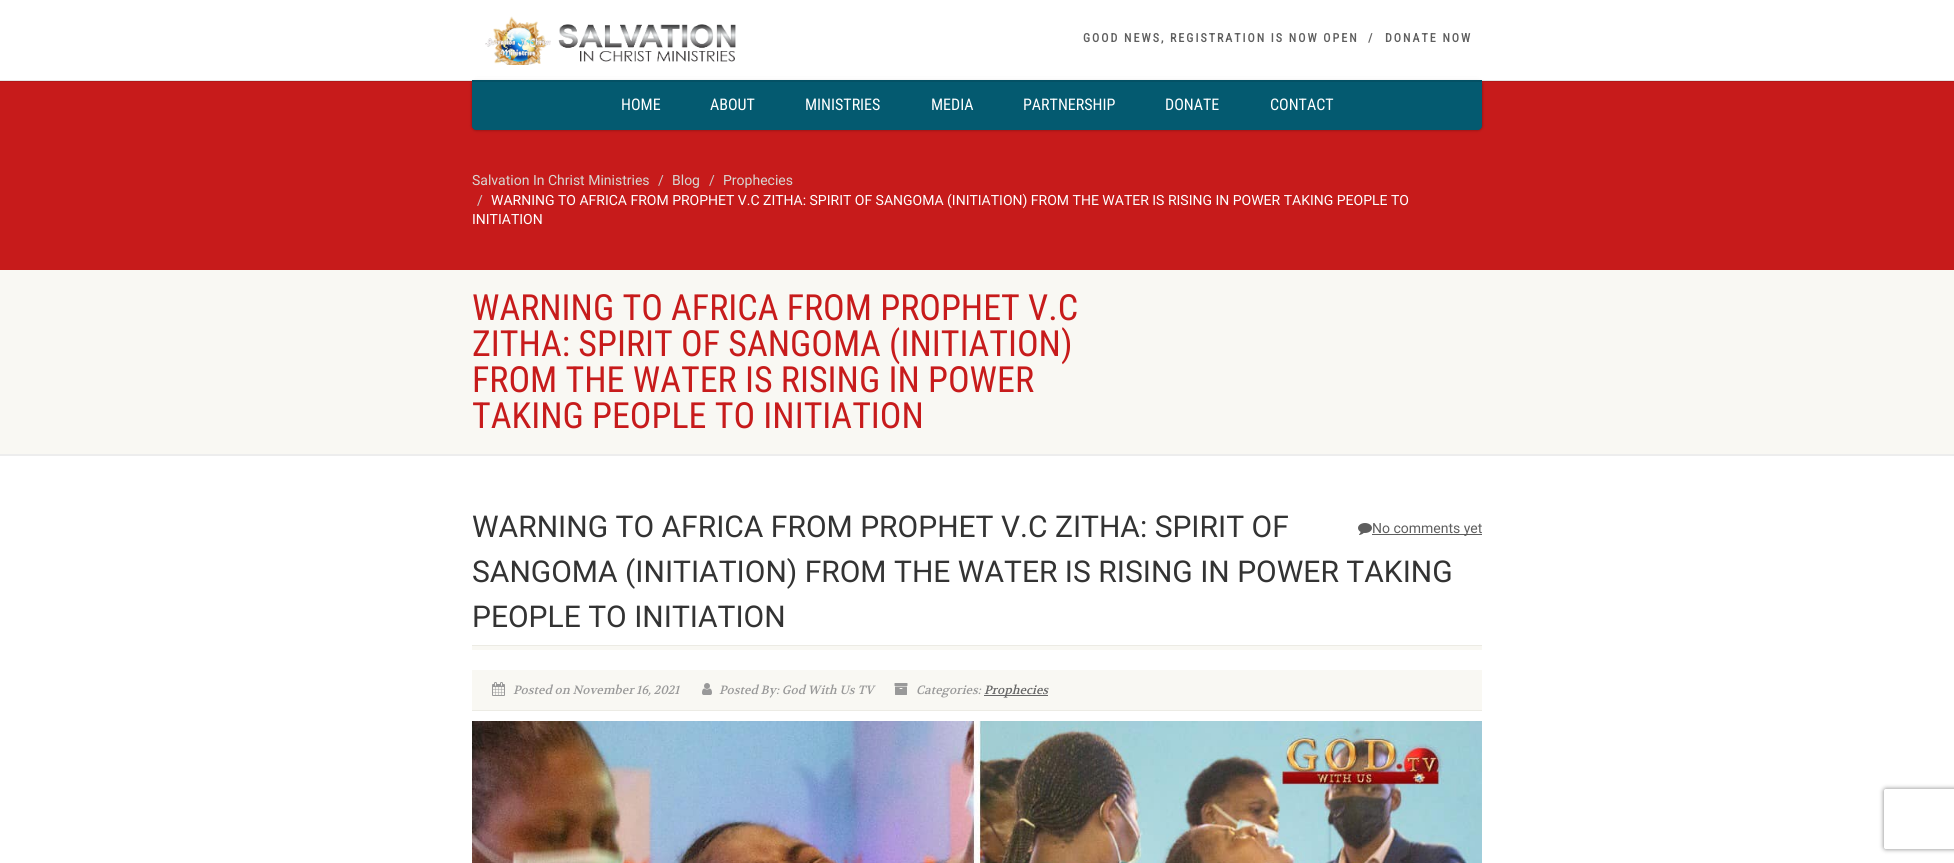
import math
import cairo

surface = cairo.ImageSurface(cairo.FORMAT_RGB24, 1954, 863)
ctx = cairo.Context(surface)
options = cairo.FontOptions()
options.set_hint_metrics(cairo.HINT_METRICS_OFF)
options.set_hint_style(cairo.HINT_STYLE_NONE)
ctx.set_font_options(options)
ctx.set_miter_limit(4)


def spaced_text(x, y, s, letter, word):
    ctx.move_to(x, y)
    for ch in s:
        ctx.show_text(ch)
        ctx.rel_move_to(letter + word * (ch == ' '), 0)


def round_rect(x, y, w, h, r):
    ctx.new_sub_path()
    for i, (u, v) in enumerate([(x + w - r, y + h - r), (x + r, y + h - r), (x + r, y + r), (x + w - r, y + r)]):
        ctx.arc(u, v, r, i * math.pi / 2, (i + 1) * math.pi / 2)
    ctx.close_path()


def shadow(x, y, w, h, r, blur, alpha):
    ctx.push_group_with_content(cairo.CONTENT_ALPHA)
    ctx.set_operator(cairo.OPERATOR_SOURCE)
    for i in range(15, -16, -2):
        e = blur * i / 6
        if min(w, h) + 2 * e > 0:
            ctx.set_source_rgba(0, 0, 0, alpha * math.erfc((i - 1) / 8.5) / 2)
            round_rect(x - e, y - e, w + 2 * e, h + 2 * e, max(0, min(r + e + blur * .6, min(w, h) / 2 + e)))
            ctx.fill()
    ctx.mask(ctx.pop_group())


def picture(path, x, y, w, h):
    ctx.save()
    ctx.set_source_surface(cairo.ImageSurface.create_from_png(path), x, y)
    ctx.rectangle(x, y, w, h)
    ctx.fill()
    ctx.restore()


ctx.set_source_rgb(1, 1, 1)
ctx.paint()
ctx.set_source_rgb(0.78, 0.106, 0.106)
ctx.rectangle(0, 81, 1954, 189)
ctx.fill()
ctx.set_source_rgb(0, 0, 0)
shadow(472, 80, 1010, 50, 4, 1.5, 0.4)
ctx.set_source_rgb(0.016, 0.353, 0.439)
ctx.new_path()
ctx.move_to(472, 80)
ctx.line_to(1482, 80)
ctx.line_to(1482, 126)
ctx.curve_to(1482, 128, 1480, 130, 1478, 130)
ctx.line_to(476, 130)
ctx.curve_to(474, 130, 472, 128, 472, 126)
ctx.close_path()
ctx.fill()
ctx.set_source_rgba(0, 0, 0, 0.1)
ctx.rectangle(0, 80, 1954, 2)
ctx.fill()
ctx.set_source_rgba(1, 1, 1, 0.8)
ctx.rectangle(471, 77, 1012, 3)
ctx.fill()
picture("img1.png", 485, 16, 251, 49)
ctx.select_font_face("Roboto Condensed", cairo.FONT_SLANT_NORMAL, cairo.FONT_WEIGHT_BOLD)
ctx.set_font_size(12)
ctx.set_source_rgb(0.369, 0.369, 0.369)
spaced_text(1083, 42, "GOOD NEWS, REGISTRATION IS NOW OPEN", 2, 0)
ctx.set_source_rgb(0.4, 0.4, 0.4)
spaced_text(1368, 42, "/", 2, 0)
ctx.set_source_rgb(0.369, 0.369, 0.369)
spaced_text(1385, 42, "DONATE NOW", 2, 0)
ctx.select_font_face("Roboto Condensed")
ctx.set_font_size(16)
ctx.set_source_rgb(1, 1, 1)
ctx.move_to(621, 110)
ctx.show_text("HOME")
ctx.move_to(710, 110)
ctx.show_text("ABOUT")
ctx.move_to(805, 110)
ctx.show_text("MINISTRIES")
ctx.move_to(931, 110)
ctx.show_text("MEDIA")
ctx.move_to(1023, 110)
ctx.show_text("PARTNERSHIP")
ctx.move_to(1165, 110)
ctx.show_text("DONATE")
ctx.move_to(1270, 110)
ctx.show_text("CONTACT")
ctx.select_font_face("Roboto")
ctx.set_font_size(14)
ctx.set_source_rgb(0.847, 0.839, 0.82)
ctx.move_to(472, 185)
ctx.show_text("Salvation In Christ Ministries")
ctx.set_source_rgb(0.8, 0.8, 0.8)
ctx.move_to(658, 185)
ctx.show_text("/")
ctx.set_source_rgb(0.847, 0.839, 0.82)
ctx.move_to(672, 185)
ctx.show_text("Blog")
ctx.set_source_rgb(0.8, 0.8, 0.8)
ctx.move_to(709, 185)
ctx.show_text("/")
ctx.set_source_rgb(0.847, 0.839, 0.82)
ctx.move_to(723, 185)
ctx.show_text("Prophecies")
ctx.set_source_rgb(0.8, 0.8, 0.8)
ctx.move_to(477, 205)
ctx.show_text("/")
ctx.set_source_rgb(1, 1, 1)
ctx.move_to(491, 205)
ctx.show_text("WARNING TO AFRICA FROM PROPHET V.C ZITHA: SPIRIT OF SANGOMA (INITIATION) FROM THE WATER IS RISING IN POWER TAKING PEOPLE TO")
ctx.move_to(472, 224)
ctx.show_text("INITIATION")
ctx.set_source_rgb(0.929, 0.929, 0.929)
ctx.rectangle(0, 454, 1954, 2)
ctx.fill()
ctx.set_source_rgb(0.973, 0.969, 0.953)
ctx.rectangle(0, 270, 1954, 184)
ctx.fill()
ctx.select_font_face("Roboto Condensed")
ctx.set_font_size(36)
ctx.set_source_rgb(0.78, 0.106, 0.106)
ctx.move_to(472, 320)
ctx.show_text("WARNING TO AFRICA FROM PROPHET V.C")
ctx.move_to(472, 356)
ctx.show_text("ZITHA: SPIRIT OF SANGOMA (INITIATION)")
ctx.move_to(472, 392)
ctx.show_text("FROM THE WATER IS RISING IN POWER")
ctx.move_to(472, 428)
ctx.show_text("TAKING PEOPLE TO INITIATION")
ctx.set_source_rgb(0.925, 0.918, 0.894)
ctx.rectangle(472, 645, 1010, 1)
ctx.fill()
ctx.select_font_face("Roboto")
ctx.set_font_size(30)
ctx.set_source_rgb(0.2, 0.2, 0.2)
ctx.move_to(472, 537)
ctx.show_text("WARNING TO AFRICA FROM PROPHET V.C ZITHA: SPIRIT OF")
ctx.move_to(472, 582)
ctx.show_text("SANGOMA (INITIATION) FROM THE WATER IS RISING IN POWER TAKING")
ctx.move_to(472, 627)
ctx.show_text("PEOPLE TO INITIATION")
picture("img2.png", 1358, 523, 14, 12)
ctx.set_source_rgb(0.369, 0.369, 0.369)
ctx.rectangle(1372, 534, 110, 1)
ctx.fill()
ctx.set_font_size(14)
ctx.move_to(1372, 533)
ctx.show_text("No comments yet")
ctx.set_source_rgb(0.973, 0.969, 0.953)
ctx.rectangle(472, 646, 1010, 4)
ctx.fill()
ctx.rectangle(472, 670, 1010, 40)
ctx.fill()
ctx.set_source_rgb(0.925, 0.918, 0.894)
ctx.rectangle(472, 710, 1010, 1)
ctx.fill()
picture("img3.png", 492, 682, 13, 14)
ctx.select_font_face("Volkhov", cairo.FONT_SLANT_ITALIC)
ctx.set_font_size(12)
ctx.set_source_rgb(0.6, 0.6, 0.6)
ctx.move_to(513, 694)
ctx.show_text("Posted on November 16, 2021")
picture("img4.png", 702, 683, 10, 12)
ctx.move_to(719, 694)
ctx.show_text("Posted By: God With Us TV")
picture("img5.png", 894, 683, 14, 12)
ctx.move_to(916, 694)
ctx.show_text("Categories:")
ctx.set_source_rgb(0.4, 0.4, 0.4)
ctx.rectangle(984, 695, 64, 1)
ctx.fill()
ctx.move_to(984, 694)
ctx.show_text("Prophecies")
picture("img6.png", 472, 721, 1010, 142)
ctx.save()
ctx.set_fill_rule(cairo.FILL_RULE_EVEN_ODD)
ctx.new_path()
ctx.move_to(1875, 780)
ctx.line_to(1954, 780)
ctx.line_to(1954, 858)
ctx.line_to(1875, 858)
ctx.close_path()
ctx.move_to(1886, 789)
ctx.line_to(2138, 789)
ctx.curve_to(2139, 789, 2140, 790, 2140, 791)
ctx.line_to(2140, 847)
ctx.curve_to(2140, 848, 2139, 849, 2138, 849)
ctx.line_to(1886, 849)
ctx.curve_to(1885, 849, 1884, 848, 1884, 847)
ctx.line_to(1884, 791)
ctx.curve_to(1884, 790, 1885, 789, 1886, 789)
ctx.close_path()
ctx.clip()
ctx.set_source_rgb(0.502, 0.502, 0.502)
shadow(1884, 789, 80, 60, 2, 2.5, 1)
ctx.restore()
surface.write_to_png("page.png")
